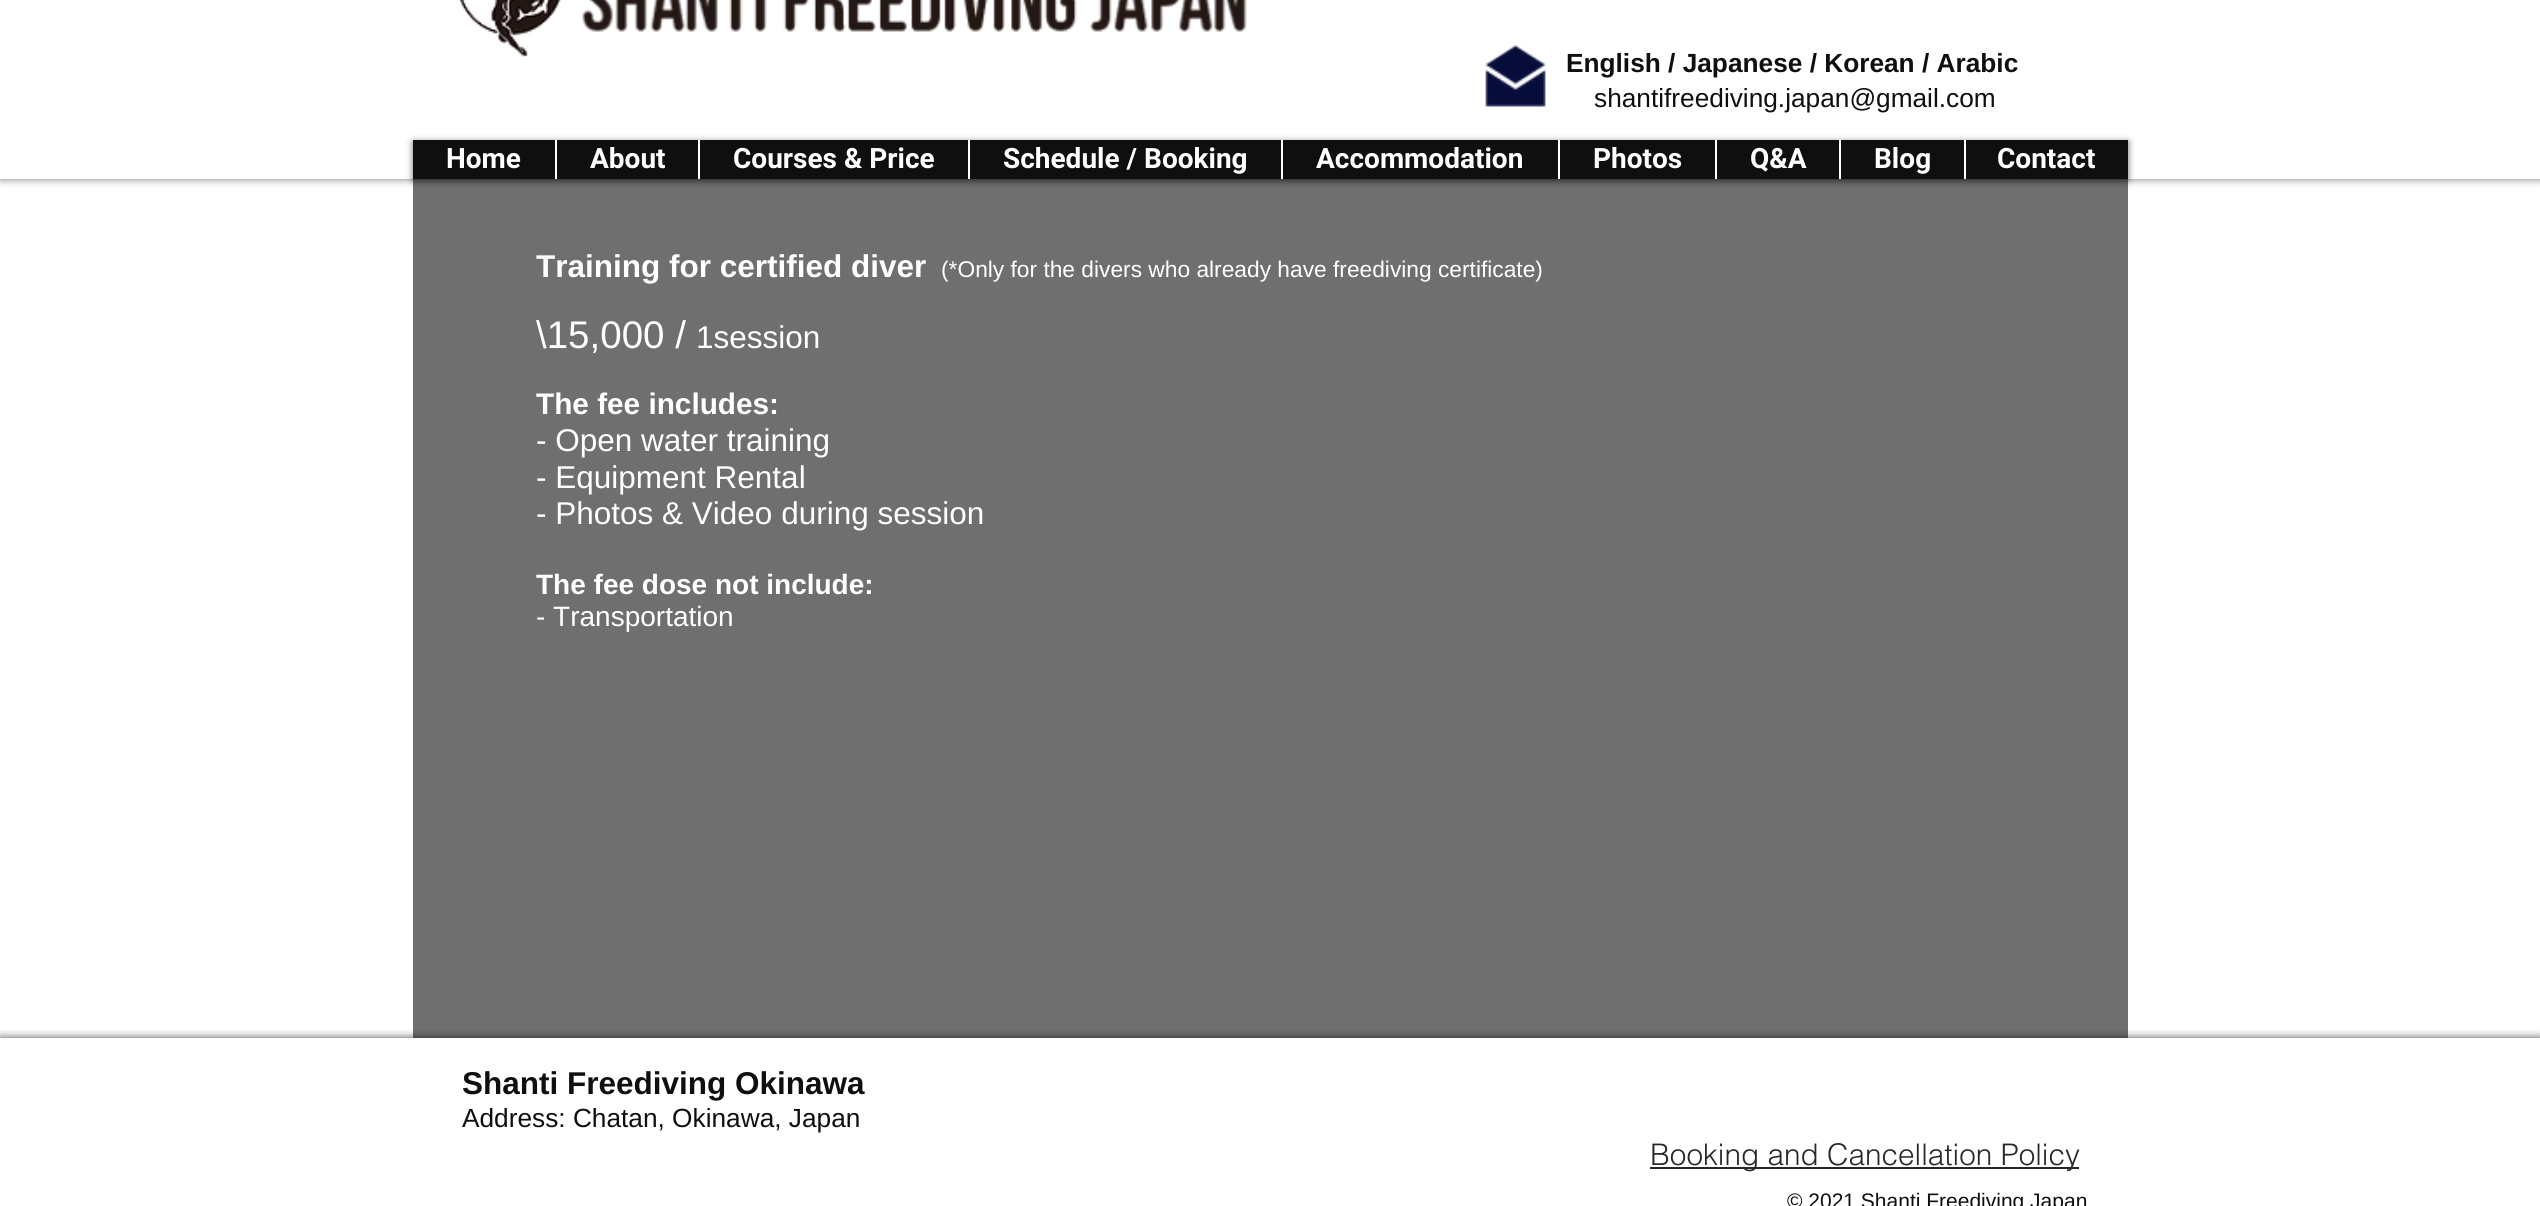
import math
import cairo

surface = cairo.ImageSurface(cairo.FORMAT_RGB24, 2540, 1206)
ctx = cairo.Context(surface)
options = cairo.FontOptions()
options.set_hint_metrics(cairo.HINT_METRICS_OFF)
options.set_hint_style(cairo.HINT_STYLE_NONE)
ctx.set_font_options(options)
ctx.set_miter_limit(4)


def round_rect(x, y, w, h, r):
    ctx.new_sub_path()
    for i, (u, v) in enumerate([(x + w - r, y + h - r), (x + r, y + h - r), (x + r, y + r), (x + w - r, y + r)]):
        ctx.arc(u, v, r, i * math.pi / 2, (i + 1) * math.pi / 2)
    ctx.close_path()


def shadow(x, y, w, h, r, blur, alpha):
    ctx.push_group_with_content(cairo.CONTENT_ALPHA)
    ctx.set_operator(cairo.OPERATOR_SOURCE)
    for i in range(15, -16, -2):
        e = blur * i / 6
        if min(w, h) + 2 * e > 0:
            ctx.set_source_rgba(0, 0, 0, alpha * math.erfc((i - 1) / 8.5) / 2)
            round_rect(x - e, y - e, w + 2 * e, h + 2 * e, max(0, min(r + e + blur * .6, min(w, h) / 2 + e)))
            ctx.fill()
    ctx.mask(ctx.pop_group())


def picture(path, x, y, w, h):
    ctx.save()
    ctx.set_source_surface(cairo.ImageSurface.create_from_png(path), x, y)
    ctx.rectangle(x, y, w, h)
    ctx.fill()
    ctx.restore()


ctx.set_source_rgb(1, 1, 1)
ctx.paint()
ctx.set_source_rgb(0, 0, 0)
shadow(0, -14, 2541, 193, 0, 4.5, 0.5)
ctx.set_source_rgb(1, 1, 1)
ctx.rectangle(0, 0, 2540, 179)
ctx.fill()
picture("img1.png", 459, 0, 102, 57)
picture("img2.png", 582, 0, 665, 32)
picture("img3.png", 1485, 45, 61, 62)
ctx.select_font_face("Liberation Sans", cairo.FONT_SLANT_NORMAL, cairo.FONT_WEIGHT_BOLD)
ctx.set_font_size(26.25)
ctx.set_source_rgb(0.059, 0.059, 0.059)
ctx.move_to(1566, 72)
ctx.show_text("English / Japanese / Korean / Arabic")
ctx.select_font_face("Liberation Sans")
ctx.move_to(1594, 107)
ctx.show_text("shantifreediving.japan@gmail.com")
ctx.set_source_rgb(0, 0, 0)
shadow(413, 142, 1715, 38, 0, 3.5, 0.6)
ctx.set_source_rgb(0.059, 0.059, 0.059)
ctx.rectangle(413, 140, 1715, 39)
ctx.fill()
ctx.select_font_face("Roboto", cairo.FONT_SLANT_NORMAL, cairo.FONT_WEIGHT_BOLD)
ctx.set_font_size(28)
ctx.set_source_rgb(1, 1, 1)
ctx.move_to(446, 168)
ctx.show_text("Home")
ctx.rectangle(555, 140, 2, 39)
ctx.fill()
ctx.move_to(590, 168)
ctx.show_text("About")
ctx.rectangle(698, 140, 2, 39)
ctx.fill()
ctx.move_to(733, 168)
ctx.show_text("Courses & Price")
ctx.rectangle(968, 140, 2, 39)
ctx.fill()
ctx.move_to(1003, 168)
ctx.show_text("Schedule / Booking")
ctx.rectangle(1281, 140, 2, 39)
ctx.fill()
ctx.move_to(1316, 168)
ctx.show_text("Accommodation")
ctx.rectangle(1558, 140, 2, 39)
ctx.fill()
ctx.move_to(1593, 168)
ctx.show_text("Photos")
ctx.rectangle(1715, 140, 2, 39)
ctx.fill()
ctx.move_to(1750, 168)
ctx.show_text("Q&A")
ctx.rectangle(1839, 140, 2, 39)
ctx.fill()
ctx.move_to(1874, 168)
ctx.show_text("Blog")
ctx.rectangle(1964, 140, 2, 39)
ctx.fill()
ctx.move_to(1997, 168)
ctx.show_text("Contact")
ctx.set_source_rgba(0.059, 0.059, 0.059, 0.6)
ctx.rectangle(413, 179, 1715, 859)
ctx.fill()
ctx.select_font_face("Liberation Sans", cairo.FONT_SLANT_NORMAL, cairo.FONT_WEIGHT_BOLD)
ctx.set_font_size(31.5)
ctx.set_source_rgb(1, 1, 1)
ctx.move_to(536, 277)
ctx.show_text("Training for certified diver")
ctx.select_font_face("Liberation Sans")
ctx.set_font_size(22.75)
ctx.move_to(941, 277)
ctx.show_text("(*Only for the divers who already have freediving certificate)")
ctx.set_font_size(38.5)
ctx.move_to(536, 348)
ctx.show_text("\\15,000 /")
ctx.set_font_size(31.5)
ctx.move_to(696, 348)
ctx.show_text("1session")
ctx.select_font_face("Liberation Sans", cairo.FONT_SLANT_NORMAL, cairo.FONT_WEIGHT_BOLD)
ctx.set_font_size(29.75)
ctx.move_to(536, 414)
ctx.show_text("The fee includes:")
ctx.select_font_face("Liberation Sans")
ctx.set_font_size(31.5)
ctx.move_to(536, 451)
ctx.show_text("- Open water training")
ctx.move_to(536, 488)
ctx.show_text("- Equipment Rental")
ctx.move_to(536, 524)
ctx.show_text("- Photos & Video during session")
ctx.select_font_face("Liberation Sans", cairo.FONT_SLANT_NORMAL, cairo.FONT_WEIGHT_BOLD)
ctx.set_font_size(28)
ctx.move_to(536, 594)
ctx.show_text("The fee dose not include:")
ctx.select_font_face("Liberation Sans")
ctx.move_to(536, 626)
ctx.show_text("- Transportation")
ctx.save()
ctx.rectangle(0, 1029, 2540, 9)
ctx.clip()
ctx.set_source_rgb(0, 0, 0)
shadow(0, 1038, 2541, 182, 0, 4.5, 0.7)
ctx.restore()
ctx.select_font_face("Liberation Sans", cairo.FONT_SLANT_NORMAL, cairo.FONT_WEIGHT_BOLD)
ctx.set_font_size(31.5)
ctx.set_source_rgb(0.059, 0.059, 0.059)
ctx.move_to(462, 1094)
ctx.show_text("Shanti Freediving Okinawa")
ctx.select_font_face("Liberation Sans")
ctx.set_font_size(26.25)
ctx.move_to(462, 1127)
ctx.show_text("Address: Chatan, Okinawa, Japan")
ctx.set_source_rgb(0.157, 0.149, 0.149)
ctx.rectangle(1650, 1167, 429, 2)
ctx.fill()
ctx.select_font_face("helvetica Light")
ctx.set_font_size(29.75)
ctx.move_to(1650, 1165)
ctx.show_text("Booking and Cancellation Policy")
ctx.select_font_face("Liberation Sans")
ctx.set_font_size(21)
ctx.set_source_rgb(0.059, 0.059, 0.059)
ctx.move_to(1787, 1208)
ctx.show_text("© 2021 Shanti Freediving Japan")
surface.write_to_png("page.png")
